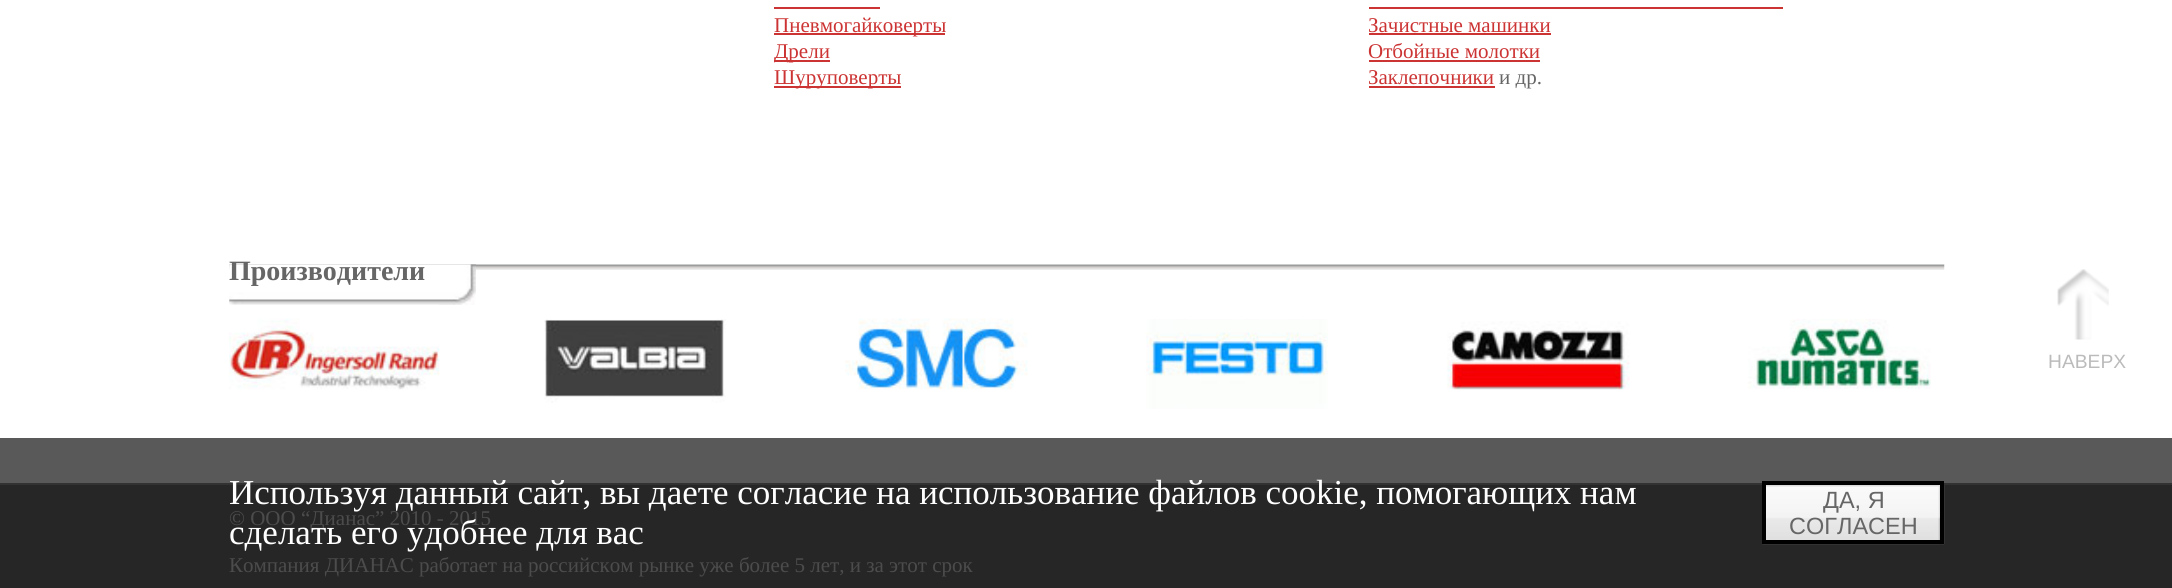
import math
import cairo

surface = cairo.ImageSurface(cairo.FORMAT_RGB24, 2172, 588)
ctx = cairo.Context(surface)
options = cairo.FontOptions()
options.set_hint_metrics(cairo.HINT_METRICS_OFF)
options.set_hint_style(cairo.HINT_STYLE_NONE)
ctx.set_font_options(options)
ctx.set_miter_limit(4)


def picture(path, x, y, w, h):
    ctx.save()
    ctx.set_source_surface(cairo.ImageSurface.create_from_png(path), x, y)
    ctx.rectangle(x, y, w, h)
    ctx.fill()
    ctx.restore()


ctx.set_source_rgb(1, 1, 1)
ctx.paint()
ctx.set_source_rgb(0.349, 0.349, 0.349)
ctx.rectangle(0, 438, 2172, 45)
ctx.fill()
ctx.set_source_rgb(0.8, 0.2, 0.2)
ctx.rectangle(774, 7, 106, 2)
ctx.fill()
ctx.rectangle(774, 33, 171, 2)
ctx.fill()
ctx.select_font_face("Liberation Serif")
ctx.set_font_size(21)
ctx.move_to(774, 32)
ctx.show_text("Пневмогайковерты")
ctx.rectangle(774, 60, 56, 2)
ctx.fill()
ctx.move_to(774, 58)
ctx.show_text("Дрели")
ctx.rectangle(774, 86, 127, 2)
ctx.fill()
ctx.move_to(774, 84)
ctx.show_text("Шуруповерты")
ctx.rectangle(1369, 7, 414, 2)
ctx.fill()
ctx.move_to(1368, 32)
ctx.show_text("Зачистные машинки")
ctx.rectangle(1369, 33, 182, 2)
ctx.fill()
ctx.move_to(1368, 58)
ctx.show_text("Отбойные молотки")
ctx.rectangle(1369, 60, 171, 2)
ctx.fill()
ctx.move_to(1368, 84)
ctx.show_text("Заклепочники")
ctx.rectangle(1369, 86, 126, 2)
ctx.fill()
ctx.set_source_rgb(0.4, 0.4, 0.4)
ctx.move_to(1499, 84)
ctx.show_text("и др.")
picture("img1.png", 229, 264, 1716, 6)
picture("img2.png", 229, 264, 247, 41)
ctx.select_font_face("Liberation Serif", cairo.FONT_SLANT_NORMAL, cairo.FONT_WEIGHT_BOLD)
ctx.set_font_size(28)
ctx.move_to(229, 280)
ctx.show_text("Производители")
picture("img3.png", 229, 304, 211, 86)
picture("img4.png", 544, 319, 182, 84)
picture("img5.png", 845, 318, 183, 72)
picture("img6.png", 1146, 319, 182, 90)
picture("img7.png", 1447, 321, 183, 69)
picture("img8.png", 1748, 319, 183, 70)
picture("img9.png", 2057, 269, 52, 71)
ctx.select_font_face("Liberation Sans")
ctx.set_font_size(19.25)
ctx.set_source_rgb(0.733, 0.733, 0.733)
ctx.move_to(2048, 368)
ctx.show_text("НАВЕРХ")
ctx.set_source_rgb(0.149, 0.149, 0.149)
ctx.rectangle(0, 485, 2172, 103)
ctx.fill()
ctx.set_source_rgb(0.196, 0.196, 0.196)
ctx.rectangle(0, 483, 2172, 2)
ctx.fill()
ctx.select_font_face("Liberation Serif")
ctx.set_font_size(35)
ctx.set_source_rgb(1, 1, 1)
ctx.move_to(229, 504)
ctx.show_text("Используя данный сайт, вы даете согласие на использование файлов cookie, помогающих нам")
ctx.set_font_size(21)
ctx.set_source_rgb(0.298, 0.298, 0.298)
ctx.move_to(229, 525)
ctx.show_text("© ООО “Дианас” 2010 - 2015")
ctx.set_font_size(35)
ctx.set_source_rgb(1, 1, 1)
ctx.move_to(229, 544)
ctx.show_text("сделать его удобнее для вас")
picture("img10.png", 1762, 485, 183, 60)
ctx.rectangle(1764, 483, 178, 59)
ctx.set_source_rgb(0, 0, 0)
ctx.set_line_width(4)
ctx.stroke()
ctx.select_font_face("Liberation Sans")
ctx.set_font_size(23.5)
ctx.set_source_rgb(0.4, 0.4, 0.4)
ctx.move_to(1823, 508)
ctx.show_text("ДА, Я")
ctx.move_to(1789, 534)
ctx.show_text("СОГЛАСЕН")
ctx.select_font_face("Liberation Serif")
ctx.set_font_size(21)
ctx.set_source_rgb(0.298, 0.298, 0.298)
ctx.move_to(229, 572)
ctx.show_text("Компания ДИАНАС работает на российском рынке уже более 5 лет, и за этот срок")
surface.write_to_png("page.png")
